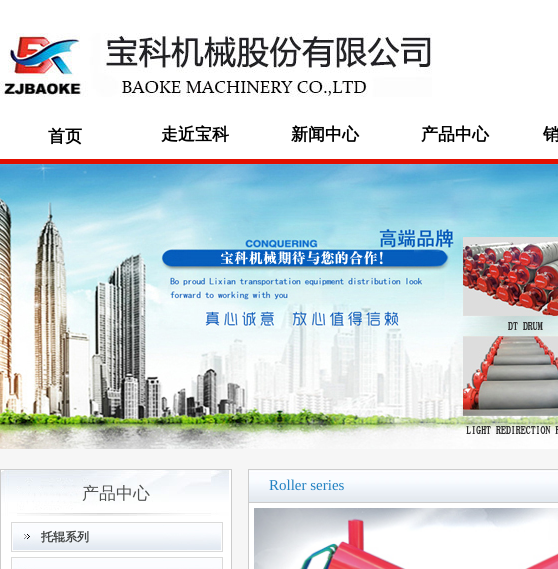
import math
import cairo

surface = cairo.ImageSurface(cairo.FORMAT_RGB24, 558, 569)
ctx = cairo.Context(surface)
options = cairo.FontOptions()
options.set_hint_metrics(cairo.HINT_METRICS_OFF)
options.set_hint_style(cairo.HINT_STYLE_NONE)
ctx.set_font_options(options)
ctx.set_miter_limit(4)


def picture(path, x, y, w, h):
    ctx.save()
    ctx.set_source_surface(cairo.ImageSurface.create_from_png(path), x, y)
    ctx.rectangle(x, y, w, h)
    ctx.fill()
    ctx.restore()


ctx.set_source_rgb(1, 1, 1)
ctx.paint()
picture("img1.png", 0, 33, 432, 64)
ctx.set_source_rgb(0.89, 0.059, 0)
ctx.rectangle(0, 159, 558, 5)
ctx.fill()
ctx.select_font_face("WenQuanYi Zen Hei", cairo.FONT_SLANT_NORMAL, cairo.FONT_WEIGHT_BOLD)
ctx.set_font_size(17)
ctx.set_source_rgb(0, 0, 0)
ctx.move_to(48, 142)
ctx.show_text("首页")
ctx.move_to(161, 140)
ctx.show_text("走近宝科")
ctx.move_to(291, 140)
ctx.show_text("新闻中心")
ctx.move_to(421, 140)
ctx.show_text("产品中心")
ctx.move_to(543, 140)
ctx.show_text("销")
picture("img2.png", 0, 164, 558, 285)
ctx.set_source_rgb(0.961, 0.961, 0.961)
ctx.rectangle(0, 449, 558, 120)
ctx.fill()
ctx.set_source_rgb(1, 1, 1)
ctx.rectangle(0.5, 469.5, 231, 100)
ctx.fill_preserve()
ctx.set_source_rgb(0.8, 0.8, 0.8)
ctx.set_line_width(1)
ctx.stroke()
picture("img3.png", 1, 470, 228, 46)
ctx.select_font_face("WenQuanYi Zen Hei Medium")
ctx.set_source_rgb(0.31, 0.318, 0.314)
ctx.move_to(82, 499)
ctx.show_text("产品中心")
picture("img4.png", 11, 522, 212, 30)
ctx.select_font_face("WenQuanYi Zen Hei", cairo.FONT_SLANT_NORMAL, cairo.FONT_WEIGHT_BOLD)
ctx.set_font_size(12)
ctx.set_source_rgb(0.251, 0.259, 0.259)
ctx.move_to(41, 541)
ctx.show_text("托辊系列")
picture("img5.png", 11, 557, 212, 12)
ctx.set_source_rgb(1, 1, 1)
ctx.rectangle(249, 503, 309, 66)
ctx.fill()
ctx.rectangle(248.5, 469.5, 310, 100)
ctx.set_source_rgb(0.8, 0.8, 0.8)
ctx.stroke()
picture("img6.png", 249, 470, 309, 32)
ctx.rectangle(249, 502, 309, 1)
ctx.fill()
ctx.select_font_face("Liberation Serif")
ctx.set_font_size(15)
ctx.set_source_rgb(0.133, 0.506, 0.761)
ctx.move_to(269, 490)
ctx.show_text("Roller series")
picture("img7.png", 254, 508, 304, 61)
surface.write_to_png("page.png")
